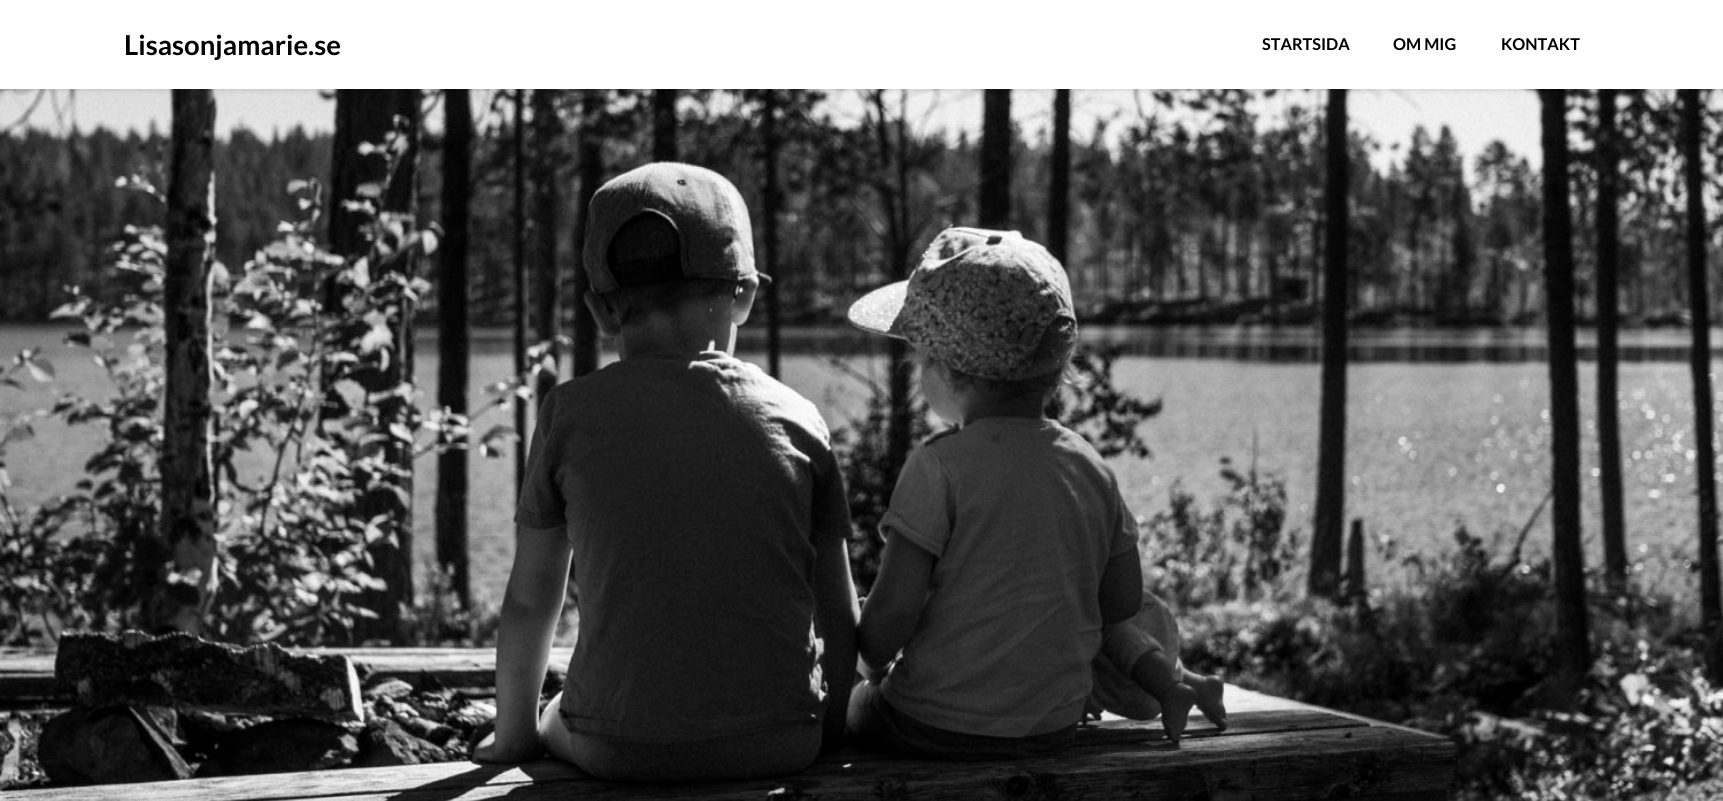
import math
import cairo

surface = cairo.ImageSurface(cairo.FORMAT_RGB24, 1723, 801)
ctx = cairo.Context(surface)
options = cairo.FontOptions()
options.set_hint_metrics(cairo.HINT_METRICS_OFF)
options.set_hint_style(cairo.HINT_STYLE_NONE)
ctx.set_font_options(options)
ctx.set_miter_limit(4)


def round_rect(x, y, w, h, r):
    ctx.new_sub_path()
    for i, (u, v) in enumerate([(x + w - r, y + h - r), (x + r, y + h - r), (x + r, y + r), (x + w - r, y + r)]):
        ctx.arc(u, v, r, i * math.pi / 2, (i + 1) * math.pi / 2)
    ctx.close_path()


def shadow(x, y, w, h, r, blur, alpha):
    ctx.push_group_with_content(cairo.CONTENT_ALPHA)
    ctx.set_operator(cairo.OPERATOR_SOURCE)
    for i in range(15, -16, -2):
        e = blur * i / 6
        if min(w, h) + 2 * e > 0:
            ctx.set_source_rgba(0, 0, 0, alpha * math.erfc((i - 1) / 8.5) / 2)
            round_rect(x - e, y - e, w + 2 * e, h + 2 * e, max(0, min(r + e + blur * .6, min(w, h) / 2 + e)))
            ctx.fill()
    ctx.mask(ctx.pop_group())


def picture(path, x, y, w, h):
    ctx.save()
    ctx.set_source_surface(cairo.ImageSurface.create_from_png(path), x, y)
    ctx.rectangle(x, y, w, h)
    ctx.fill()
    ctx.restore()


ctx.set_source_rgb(1, 1, 1)
ctx.paint()
picture("img1.png", 0, 89, 1723, 712)
ctx.set_source_rgb(0, 0, 0)
shadow(0, 3, 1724, 88, 0, 2.5, 0.1)
ctx.set_source_rgb(1, 1, 1)
ctx.rectangle(0, 0, 1723, 89)
ctx.fill()
ctx.select_font_face("Lato", cairo.FONT_SLANT_NORMAL, cairo.FONT_WEIGHT_BOLD)
ctx.set_font_size(27.5)
ctx.set_source_rgb(0, 0, 0)
ctx.move_to(124, 55)
ctx.show_text("Lisasonjamarie.se")
ctx.set_font_size(16.25)
ctx.move_to(1262, 50)
ctx.show_text("STARTSIDA")
ctx.move_to(1393, 50)
ctx.show_text("OM MIG")
ctx.move_to(1501, 50)
ctx.show_text("KONTAKT")
surface.write_to_png("page.png")
